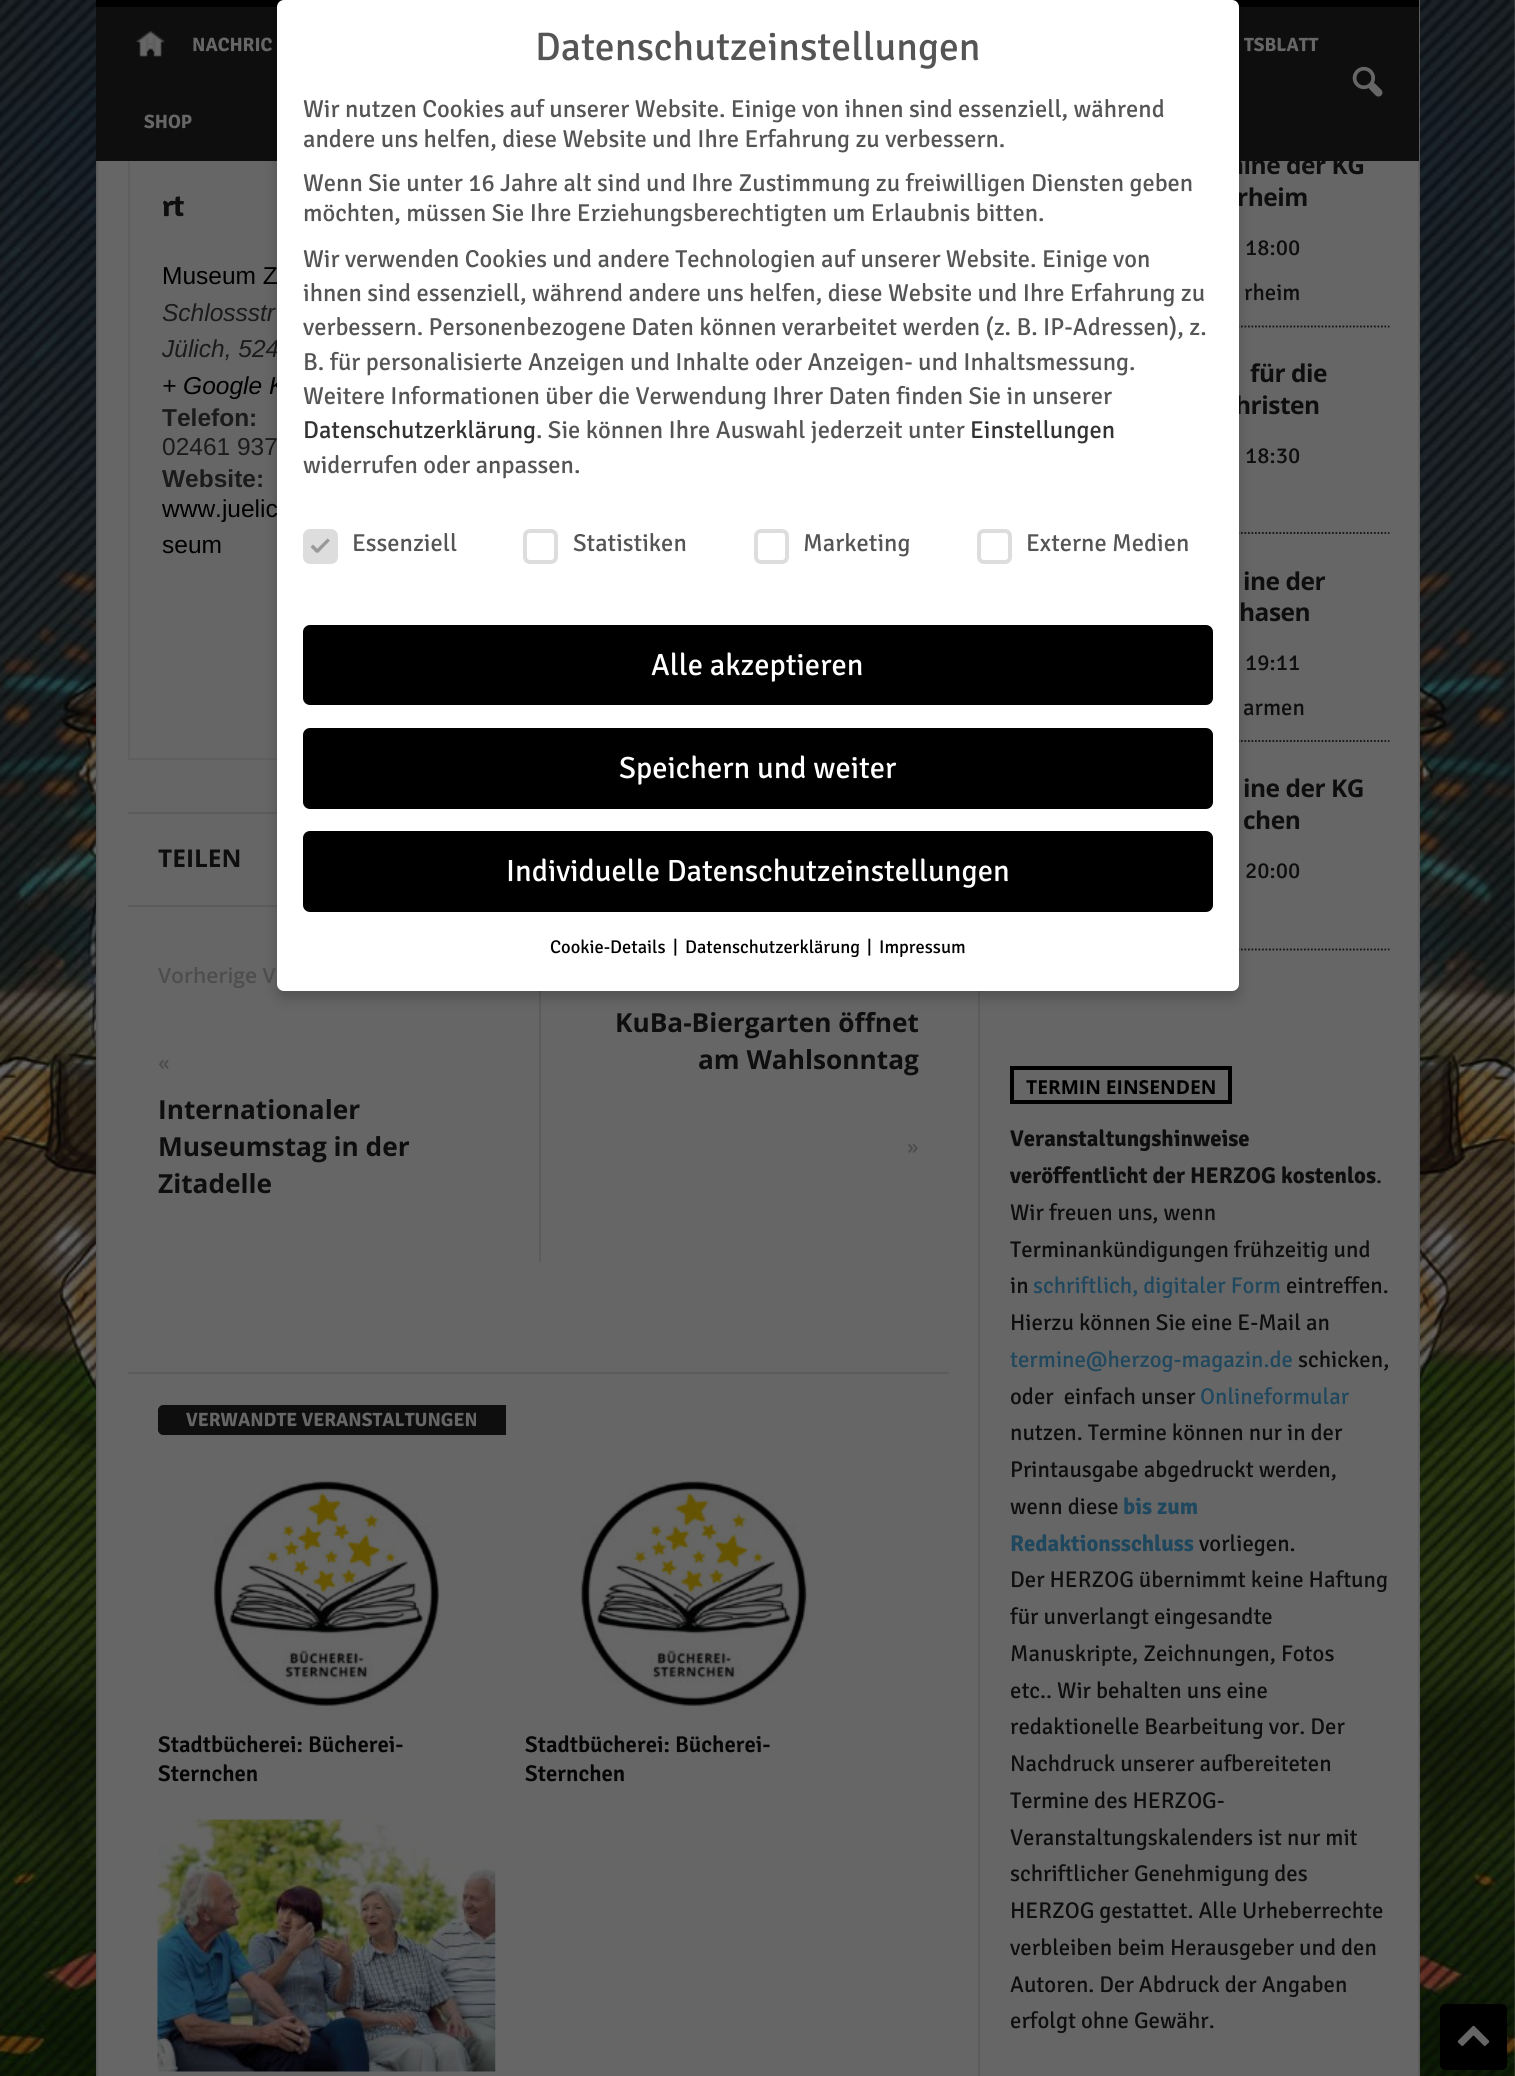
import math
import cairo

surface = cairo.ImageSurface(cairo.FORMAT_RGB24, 1515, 2076)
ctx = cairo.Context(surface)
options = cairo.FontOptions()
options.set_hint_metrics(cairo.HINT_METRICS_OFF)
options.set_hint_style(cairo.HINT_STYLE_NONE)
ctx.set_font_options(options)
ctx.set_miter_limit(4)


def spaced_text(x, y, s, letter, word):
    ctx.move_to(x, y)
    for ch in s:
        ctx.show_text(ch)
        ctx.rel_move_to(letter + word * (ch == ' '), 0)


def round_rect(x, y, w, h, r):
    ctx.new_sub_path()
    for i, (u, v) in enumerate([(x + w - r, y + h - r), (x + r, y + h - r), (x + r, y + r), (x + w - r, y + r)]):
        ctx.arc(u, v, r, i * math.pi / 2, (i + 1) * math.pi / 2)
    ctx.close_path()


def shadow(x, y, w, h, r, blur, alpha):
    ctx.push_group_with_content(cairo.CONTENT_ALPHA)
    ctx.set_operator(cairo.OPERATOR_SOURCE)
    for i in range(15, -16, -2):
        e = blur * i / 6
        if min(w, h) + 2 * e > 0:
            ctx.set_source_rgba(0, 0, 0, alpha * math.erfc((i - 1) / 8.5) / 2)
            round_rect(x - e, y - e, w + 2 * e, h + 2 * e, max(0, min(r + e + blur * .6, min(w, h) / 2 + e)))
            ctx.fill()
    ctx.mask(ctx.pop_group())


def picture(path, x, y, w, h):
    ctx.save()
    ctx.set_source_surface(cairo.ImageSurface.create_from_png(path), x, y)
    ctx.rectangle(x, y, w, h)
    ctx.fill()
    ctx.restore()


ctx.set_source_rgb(1, 1, 1)
ctx.paint()
picture("img1.png", 0, 0, 1515, 2076)
ctx.set_source_rgb(0.4, 0.4, 0.4)
ctx.rectangle(98, 161, 1320, 1915)
ctx.fill()
ctx.rectangle(129, 71, 819, 688)
ctx.set_source_rgb(0.373, 0.373, 0.373)
ctx.stroke()
ctx.set_source_rgb(0.361, 0.361, 0.361)
ctx.rectangle(1418, 0, 2, 2076)
ctx.fill()
ctx.set_source_rgb(0.055, 0.055, 0.055)
ctx.rectangle(96, 7, 1323, 154)
ctx.fill()
ctx.set_source_rgb(0, 0, 0)
ctx.rectangle(96, 0, 1323, 7)
ctx.fill()
ctx.set_source_rgb(0.361, 0.361, 0.361)
ctx.rectangle(128, 812, 149, 2)
ctx.fill()
ctx.rectangle(128, 905, 149, 2)
ctx.fill()
ctx.rectangle(539, 991, 2, 271)
ctx.fill()
ctx.rectangle(978, 991, 2, 1085)
ctx.fill()
ctx.new_path()
ctx.move_to(1010, 326.5)
ctx.line_to(1389.5, 326.5)
ctx.set_source_rgb(0.075, 0.075, 0.075)
ctx.set_line_width(1.8)
ctx.set_dash([1.75, 1.75])
ctx.stroke()
ctx.new_path()
ctx.move_to(1010, 533)
ctx.line_to(1389.5, 533)
ctx.stroke()
ctx.new_path()
ctx.move_to(1010, 741)
ctx.line_to(1389.5, 741)
ctx.stroke()
ctx.new_path()
ctx.move_to(1010, 949.5)
ctx.line_to(1389.5, 949.5)
ctx.stroke()
ctx.set_source_rgb(0, 0, 0)
shadow(277, 7, 962, 991, 7, 7, 0.2)
ctx.select_font_face("Liberation Sans")
ctx.set_font_size(24.5)
ctx.set_source_rgb(0, 0, 0)
ctx.move_to(162, 284)
ctx.show_text("Museum Z")
ctx.select_font_face("Liberation Sans", cairo.FONT_SLANT_ITALIC)
ctx.set_source_rgb(0.106, 0.106, 0.106)
ctx.move_to(162, 357)
ctx.show_text("Jülich, 524")
ctx.set_source_rgb(0, 0, 0)
ctx.move_to(162, 394)
ctx.show_text("+ Google K")
ctx.select_font_face("Liberation Sans")
ctx.move_to(162, 517)
ctx.show_text("www.juelic")
ctx.select_font_face("Open Sans", cairo.FONT_SLANT_NORMAL, cairo.FONT_WEIGHT_BOLD)
ctx.set_source_rgb(0.055, 0.055, 0.055)
spaced_text(1220, 174, "mine der KG", -0.5, 0)
spaced_text(1237, 206, "rheim", -0.5, 0)
spaced_text(1235, 414, "hristen", -0.5, 0)
ctx.set_source_rgb(1, 1, 1)
round_rect(277, 0, 962, 991, 7)
ctx.fill()
ctx.select_font_face("Signika")
ctx.set_font_size(39.75)
ctx.set_source_rgb(0.333, 0.333, 0.333)
ctx.move_to(535, 60)
ctx.show_text("Datenschutzeinstellungen")
ctx.set_font_size(24.5)
ctx.move_to(303, 117)
ctx.show_text("Wir nutzen Cookies auf unserer Website. Einige von ihnen sind essenziell, während")
ctx.move_to(303, 147)
ctx.show_text("andere uns helfen, diese Website und Ihre Erfahrung zu verbessern.")
ctx.move_to(303, 191)
ctx.show_text("Wenn Sie unter 16 Jahre alt sind und Ihre Zustimmung zu freiwilligen Diensten geben")
ctx.move_to(303, 221)
ctx.show_text("möchten, müssen Sie Ihre Erziehungsberechtigten um Erlaubnis bitten.")
ctx.move_to(303, 267)
ctx.show_text("Wir verwenden Cookies und andere Technologien auf unserer Website. Einige von")
ctx.move_to(303, 301)
ctx.show_text("ihnen sind essenziell, während andere uns helfen, diese Website und Ihre Erfahrung zu")
ctx.move_to(303, 335)
ctx.show_text("verbessern. Personenbezogene Daten können verarbeitet werden (z. B. IP-Adressen), z.")
ctx.move_to(303, 370)
ctx.show_text("B. für personalisierte Anzeigen und Inhalte oder Anzeigen- und Inhaltsmessung.")
ctx.move_to(303, 404)
ctx.show_text("Weitere Informationen über die Verwendung Ihrer Daten finden Sie in unserer")
ctx.set_source_rgb(0.2, 0.2, 0.2)
ctx.move_to(303, 438)
ctx.show_text("Datenschutzerklärung")
ctx.set_source_rgb(0.333, 0.333, 0.333)
ctx.move_to(536, 438)
ctx.show_text(". Sie können Ihre Auswahl jederzeit unter")
ctx.set_source_rgb(0.2, 0.2, 0.2)
ctx.move_to(970, 438)
ctx.show_text("Einstellungen")
ctx.set_source_rgb(0.333, 0.333, 0.333)
ctx.move_to(303, 473)
ctx.show_text("widerrufen oder anpassen.")
ctx.set_source_rgb(0.867, 0.867, 0.867)
round_rect(305, 531, 31, 31, 5)
ctx.fill_preserve()
ctx.set_line_width(4)
ctx.set_dash([])
ctx.stroke()
ctx.set_source_rgb(0.6, 0.6, 0.6)
ctx.new_path()
ctx.move_to(327.5, 538.5)
ctx.line_to(330, 540.5)
ctx.line_to(318, 553)
ctx.line_to(315.5, 550.5)
ctx.close_path()
ctx.fill()
ctx.new_path()
ctx.move_to(313, 544.5)
ctx.line_to(319, 550.5)
ctx.line_to(316.5, 553)
ctx.line_to(310.5, 547)
ctx.close_path()
ctx.fill()
ctx.set_source_rgb(0.333, 0.333, 0.333)
ctx.move_to(352, 551)
ctx.show_text("Essenziell")
round_rect(525, 531, 31, 31, 5)
ctx.set_source_rgb(0.867, 0.867, 0.867)
ctx.stroke()
ctx.set_source_rgb(0.333, 0.333, 0.333)
ctx.move_to(573, 551)
ctx.show_text("Statistiken")
round_rect(756, 531, 31, 31, 5)
ctx.set_source_rgb(0.867, 0.867, 0.867)
ctx.stroke()
ctx.set_source_rgb(0.333, 0.333, 0.333)
ctx.move_to(803, 551)
ctx.show_text("Marketing")
round_rect(979, 531, 31, 31, 5)
ctx.set_source_rgb(0.867, 0.867, 0.867)
ctx.stroke()
ctx.set_source_rgb(0.333, 0.333, 0.333)
ctx.move_to(1026, 551)
ctx.show_text("Externe Medien")
ctx.set_source_rgb(0, 0, 0)
round_rect(303, 625, 910, 80, 7)
ctx.fill()
ctx.set_font_size(30.6)
ctx.set_source_rgb(1, 1, 1)
ctx.move_to(651, 675)
ctx.show_text("Alle akzeptieren")
ctx.set_source_rgb(0, 0, 0)
round_rect(303, 728, 910, 81, 7)
ctx.fill()
ctx.set_source_rgb(1, 1, 1)
ctx.move_to(619, 778)
ctx.show_text("Speichern und weiter")
ctx.set_source_rgb(0, 0, 0)
round_rect(303, 831, 910, 81, 7)
ctx.fill()
ctx.set_source_rgb(1, 1, 1)
ctx.move_to(506, 881)
ctx.show_text("Individuelle Datenschutzeinstellungen")
ctx.set_font_size(18.4)
ctx.set_source_rgb(0, 0, 0)
ctx.move_to(550, 953)
ctx.show_text("Cookie-Details")
ctx.move_to(673, 953)
ctx.show_text("|")
ctx.move_to(685, 953)
ctx.show_text("Datenschutzerklärung")
ctx.move_to(867, 953)
ctx.show_text("|")
ctx.move_to(879, 953)
ctx.show_text("Impressum")
picture("img2.png", 136, 31, 29, 26)
ctx.select_font_face("Signika", cairo.FONT_SLANT_NORMAL, cairo.FONT_WEIGHT_BOLD)
ctx.set_font_size(19.25)
ctx.set_source_rgb(0.373, 0.373, 0.373)
ctx.move_to(144, 51)
ctx.show_text("H")
ctx.set_source_rgb(0.4, 0.4, 0.4)
ctx.move_to(192, 51)
ctx.show_text("NACHRIC")
ctx.move_to(1244, 51)
ctx.show_text("TSBLATT")
ctx.move_to(144, 128)
ctx.show_text("SHOP")
picture("img3.png", 1352, 66, 31, 31)
ctx.set_source_rgb(0.361, 0.361, 0.361)
ctx.rectangle(96, 161, 2, 1915)
ctx.fill()
ctx.set_font_size(30)
ctx.set_source_rgb(0.055, 0.055, 0.055)
spaced_text(162, 216, "rt", -1, 0)
ctx.select_font_face("Liberation Sans", cairo.FONT_SLANT_ITALIC)
ctx.set_font_size(24.5)
ctx.set_source_rgb(0.106, 0.106, 0.106)
ctx.move_to(162, 321)
ctx.show_text("Schlossstr")
ctx.select_font_face("Liberation Sans", cairo.FONT_SLANT_NORMAL, cairo.FONT_WEIGHT_BOLD)
ctx.move_to(162, 426)
ctx.show_text("Telefon:")
ctx.select_font_face("Liberation Sans")
ctx.move_to(162, 455)
ctx.show_text("02461 937")
ctx.select_font_face("Liberation Sans", cairo.FONT_SLANT_NORMAL, cairo.FONT_WEIGHT_BOLD)
ctx.move_to(162, 487)
ctx.show_text("Website:")
ctx.select_font_face("Liberation Sans")
ctx.set_source_rgb(0, 0, 0)
ctx.move_to(162, 553)
ctx.show_text("seum")
ctx.select_font_face("Open Sans", cairo.FONT_SLANT_NORMAL, cairo.FONT_WEIGHT_BOLD)
ctx.set_source_rgb(0.055, 0.055, 0.055)
ctx.move_to(158, 867)
ctx.show_text("TEILEN")
ctx.select_font_face("Open Sans SemiBold")
ctx.set_font_size(21)
ctx.set_source_rgb(0.302, 0.302, 0.302)
ctx.move_to(158, 983)
ctx.show_text("Vorherige V")
ctx.move_to(158, 1070)
ctx.show_text("«")
ctx.select_font_face("Open Sans", cairo.FONT_SLANT_NORMAL, cairo.FONT_WEIGHT_BOLD)
ctx.set_font_size(26.25)
ctx.set_source_rgb(0.055, 0.055, 0.055)
ctx.move_to(158, 1119)
ctx.show_text("Internationaler")
ctx.move_to(158, 1156)
ctx.show_text("Museumstag in der")
ctx.move_to(158, 1193)
ctx.show_text("Zitadelle")
ctx.move_to(615, 1032)
ctx.show_text("KuBa-Biergarten öffnet")
ctx.move_to(698, 1069)
ctx.show_text("am Wahlsonntag")
ctx.select_font_face("Open Sans SemiBold")
ctx.set_font_size(21)
ctx.set_source_rgb(0.302, 0.302, 0.302)
ctx.move_to(907, 1154)
ctx.show_text("»")
ctx.set_source_rgb(0.361, 0.361, 0.361)
ctx.rectangle(128, 1372, 821, 2)
ctx.fill()
ctx.set_source_rgb(0.055, 0.055, 0.055)
ctx.new_path()
ctx.move_to(163, 1406)
ctx.line_to(505, 1406)
ctx.line_to(505, 1434)
ctx.line_to(163, 1434)
ctx.curve_to(161, 1434, 159, 1432, 159, 1430)
ctx.line_to(159, 1410)
ctx.curve_to(159, 1408, 161, 1406, 163, 1406)
ctx.close_path()
ctx.fill_preserve()
ctx.set_line_width(2)
ctx.stroke()
ctx.select_font_face("Signika", cairo.FONT_SLANT_NORMAL, cairo.FONT_WEIGHT_BOLD)
ctx.set_font_size(19.25)
ctx.set_source_rgb(0.4, 0.4, 0.4)
ctx.move_to(186, 1426)
ctx.show_text("VERWANDTE VERANSTALTUNGEN")
picture("img4.png", 212, 1480, 229, 226)
ctx.select_font_face("Signika SemiBold")
ctx.set_font_size(22.75)
ctx.set_source_rgb(0.027, 0.027, 0.027)
ctx.move_to(158, 1752)
ctx.show_text("Stadtbücherei: Bücherei-")
ctx.move_to(158, 1781)
ctx.show_text("Sternchen")
picture("img5.png", 580, 1480, 229, 226)
ctx.move_to(525, 1752)
ctx.show_text("Stadtbücherei: Bücherei-")
ctx.move_to(525, 1781)
ctx.show_text("Sternchen")
picture("img6.png", 157, 1819, 339, 253)
ctx.select_font_face("Signika")
ctx.set_source_rgb(0.055, 0.055, 0.055)
ctx.move_to(1245, 255)
ctx.show_text("18:00")
ctx.move_to(1244, 300)
ctx.show_text("rheim")
ctx.select_font_face("Open Sans", cairo.FONT_SLANT_NORMAL, cairo.FONT_WEIGHT_BOLD)
ctx.set_font_size(24.5)
spaced_text(1250, 382, "für die", -0.5, 0)
ctx.select_font_face("Signika")
ctx.set_font_size(22.75)
ctx.move_to(1245, 463)
ctx.show_text("18:30")
ctx.select_font_face("Open Sans", cairo.FONT_SLANT_NORMAL, cairo.FONT_WEIGHT_BOLD)
ctx.set_font_size(24.5)
spaced_text(1243, 590, "ine der", -0.5, 0)
spaced_text(1239, 621, "hasen", -0.5, 0)
ctx.select_font_face("Signika")
ctx.set_font_size(22.75)
ctx.move_to(1245, 670)
ctx.show_text("19:11")
ctx.move_to(1243, 715)
ctx.show_text("armen")
ctx.select_font_face("Open Sans", cairo.FONT_SLANT_NORMAL, cairo.FONT_WEIGHT_BOLD)
ctx.set_font_size(24.5)
spaced_text(1243, 797, "ine der KG", -0.5, 0)
spaced_text(1243, 829, "chen", -0.5, 0)
ctx.select_font_face("Signika")
ctx.set_font_size(22.75)
ctx.move_to(1245, 878)
ctx.show_text("20:00")
ctx.rectangle(1012, 1068, 218, 34)
ctx.set_source_rgb(0, 0, 0)
ctx.set_line_width(4)
ctx.stroke()
ctx.select_font_face("Open Sans", cairo.FONT_SLANT_NORMAL, cairo.FONT_WEIGHT_BOLD)
ctx.set_font_size(19.25)
ctx.move_to(1026, 1094)
ctx.show_text("TERMIN EINSENDEN")
ctx.select_font_face("Signika", cairo.FONT_SLANT_NORMAL, cairo.FONT_WEIGHT_BOLD)
ctx.set_font_size(22.75)
ctx.set_source_rgb(0.055, 0.055, 0.055)
ctx.move_to(1010, 1146)
ctx.show_text("Veranstaltungshinweise")
ctx.move_to(1010, 1183)
ctx.show_text("veröffentlicht der HERZOG kostenlos")
ctx.select_font_face("Signika")
ctx.move_to(1376, 1183)
ctx.show_text(".")
ctx.move_to(1010, 1220)
ctx.show_text("Wir freuen uns, wenn")
ctx.move_to(1010, 1257)
ctx.show_text("Terminankündigungen frühzeitig und")
ctx.move_to(1010, 1293)
ctx.show_text("in")
ctx.set_source_rgb(0.122, 0.278, 0.369)
ctx.move_to(1033, 1293)
ctx.show_text("schriftlich, digitaler Form")
ctx.set_source_rgb(0.055, 0.055, 0.055)
ctx.move_to(1286, 1293)
ctx.show_text("eintreffen.")
ctx.move_to(1010, 1330)
ctx.show_text("Hierzu können Sie eine E-Mail an")
ctx.set_source_rgb(0.122, 0.278, 0.369)
ctx.move_to(1010, 1367)
ctx.show_text("termine@herzog-magazin.de")
ctx.set_source_rgb(0.055, 0.055, 0.055)
ctx.move_to(1298, 1367)
ctx.show_text("schicken,")
ctx.move_to(1010, 1404)
ctx.show_text("oder  einfach unser")
ctx.set_source_rgb(0.122, 0.278, 0.369)
ctx.move_to(1200, 1404)
ctx.show_text("Onlineformular")
ctx.set_source_rgb(0.055, 0.055, 0.055)
ctx.move_to(1010, 1440)
ctx.show_text("nutzen. Termine können nur in der")
ctx.move_to(1010, 1477)
ctx.show_text("Printausgabe abgedruckt werden,")
ctx.move_to(1010, 1514)
ctx.show_text("wenn diese")
ctx.select_font_face("Signika", cairo.FONT_SLANT_NORMAL, cairo.FONT_WEIGHT_BOLD)
ctx.set_source_rgb(0.122, 0.278, 0.369)
ctx.move_to(1123, 1514)
ctx.show_text("bis zum")
ctx.move_to(1010, 1551)
ctx.show_text("Redaktionsschluss")
ctx.select_font_face("Signika")
ctx.set_source_rgb(0.055, 0.055, 0.055)
ctx.move_to(1199, 1551)
ctx.show_text("vorliegen.")
ctx.move_to(1010, 1587)
ctx.show_text("Der HERZOG übernimmt keine Haftung")
ctx.move_to(1010, 1624)
ctx.show_text("für unverlangt eingesandte")
ctx.move_to(1010, 1661)
ctx.show_text("Manuskripte, Zeichnungen, Fotos")
ctx.move_to(1010, 1698)
ctx.show_text("etc.. Wir behalten uns eine")
ctx.move_to(1010, 1734)
ctx.show_text("redaktionelle Bearbeitung vor. Der")
ctx.move_to(1010, 1771)
ctx.show_text("Nachdruck unserer aufbereiteten")
ctx.move_to(1010, 1808)
ctx.show_text("Termine des HERZOG-")
ctx.move_to(1010, 1845)
ctx.show_text("Veranstaltungskalenders ist nur mit")
ctx.move_to(1010, 1881)
ctx.show_text("schriftlicher Genehmigung des")
ctx.move_to(1010, 1918)
ctx.show_text("HERZOG gestattet. Alle Urheberrechte")
ctx.move_to(1010, 1955)
ctx.show_text("verbleiben beim Herausgeber und den")
ctx.move_to(1010, 1992)
ctx.show_text("Autoren. Der Abdruck der Angaben")
ctx.move_to(1010, 2028)
ctx.show_text("erfolgt ohne Gewähr.")
ctx.set_source_rgb(0, 0, 0)
round_rect(1440, 2004, 67, 66, 5)
ctx.fill()
picture("img7.png", 1457, 2025, 33, 21)
surface.write_to_png("page.png")
